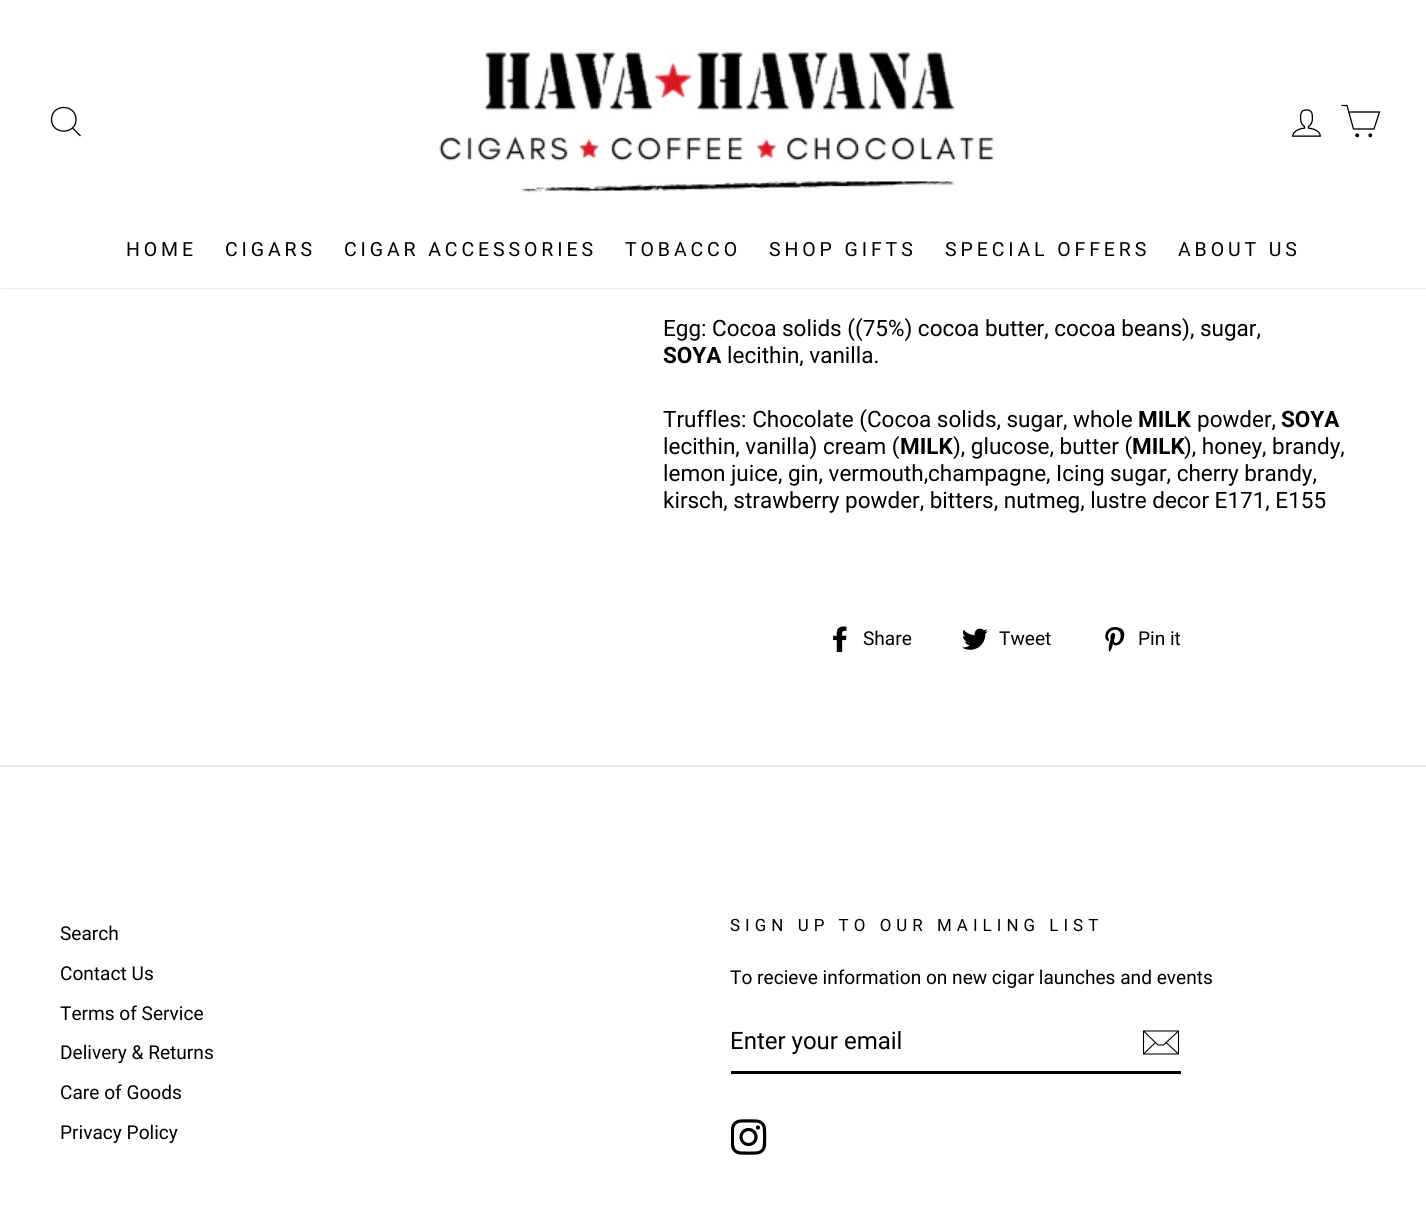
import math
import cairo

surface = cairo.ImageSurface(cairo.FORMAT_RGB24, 1426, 1219)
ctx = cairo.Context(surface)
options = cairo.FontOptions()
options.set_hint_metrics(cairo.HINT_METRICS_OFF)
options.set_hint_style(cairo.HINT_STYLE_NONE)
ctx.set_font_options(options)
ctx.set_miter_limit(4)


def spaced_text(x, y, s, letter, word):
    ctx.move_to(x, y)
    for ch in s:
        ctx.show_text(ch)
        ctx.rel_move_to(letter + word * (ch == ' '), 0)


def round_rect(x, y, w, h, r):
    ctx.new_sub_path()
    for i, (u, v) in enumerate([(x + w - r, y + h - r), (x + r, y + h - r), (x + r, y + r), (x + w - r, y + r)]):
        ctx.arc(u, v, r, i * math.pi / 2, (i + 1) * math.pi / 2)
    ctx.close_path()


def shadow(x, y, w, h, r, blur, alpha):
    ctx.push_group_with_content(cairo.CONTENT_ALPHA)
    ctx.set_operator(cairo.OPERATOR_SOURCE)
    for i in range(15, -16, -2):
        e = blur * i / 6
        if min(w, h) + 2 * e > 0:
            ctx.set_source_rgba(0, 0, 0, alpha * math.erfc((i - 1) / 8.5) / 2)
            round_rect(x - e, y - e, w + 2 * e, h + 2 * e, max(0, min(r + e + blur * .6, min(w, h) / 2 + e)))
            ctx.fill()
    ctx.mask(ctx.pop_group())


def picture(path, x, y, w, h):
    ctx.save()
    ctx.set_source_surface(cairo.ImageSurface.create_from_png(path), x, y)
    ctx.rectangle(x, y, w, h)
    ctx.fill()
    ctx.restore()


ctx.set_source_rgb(1, 1, 1)
ctx.paint()
ctx.set_source_rgb(0, 0, 0)
shadow(0, 0, 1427, 288, 0, 1, 0.2)
ctx.set_source_rgb(1, 1, 1)
ctx.rectangle(0, 0, 1426, 288)
ctx.fill()
ctx.new_path()
ctx.move_to(76, 119.5)
ctx.curve_to(76, 135, 51.5, 135, 51.5, 119.5)
ctx.curve_to(51.5, 103.5, 76, 103.5, 76, 119.5)
ctx.close_path()
ctx.move_to(80.5, 136)
ctx.line_to(72.5, 128)
ctx.set_source_rgb(0, 0, 0)
ctx.set_line_width(1.3)
ctx.stroke()
picture("img1.png", 439, 48, 555, 145)
picture("img2.png", 1292, 109, 29, 28)
ctx.new_path()
ctx.move_to(1348.5, 112)
ctx.line_to(1379.5, 112)
ctx.line_to(1374, 129)
ctx.line_to(1353.5, 129)
ctx.line_to(1347, 105.5)
ctx.line_to(1341.5, 105.5)
ctx.stroke()
ctx.arc(1357.2, 135.3, 1.3, 0, 2 * math.pi)
ctx.fill_preserve()
ctx.stroke()
ctx.arc(1370.3, 135.3, 1.3, 0, 2 * math.pi)
ctx.fill_preserve()
ctx.stroke()
ctx.select_font_face("Roboto")
ctx.set_font_size(19.5)
spaced_text(126, 256, "HOME", 3.9, 0)
spaced_text(225, 256, "CIGARS", 3.9, 0)
spaced_text(344, 256, "CIGAR ACCESSORIES", 3.9, 0)
spaced_text(625, 256, "TOBACCO", 3.9, 0)
spaced_text(769, 256, "SHOP GIFTS", 3.9, 0)
spaced_text(945, 256, "SPECIAL OFFERS", 3.9, 0)
spaced_text(1178, 256, "ABOUT US", 3.9, 0)
ctx.set_font_size(22.5)
ctx.move_to(663, 336)
ctx.show_text("Egg: Cocoa solids ((75%) cocoa butter, cocoa beans), sugar,")
ctx.select_font_face("Roboto", cairo.FONT_SLANT_NORMAL, cairo.FONT_WEIGHT_BOLD)
ctx.move_to(663, 363)
ctx.show_text("SOYA")
ctx.select_font_face("Roboto")
ctx.move_to(727, 363)
ctx.show_text("lecithin, vanilla.")
ctx.move_to(663, 427)
ctx.show_text("Truffles: Chocolate (Cocoa solids, sugar, whole")
ctx.select_font_face("Roboto", cairo.FONT_SLANT_NORMAL, cairo.FONT_WEIGHT_BOLD)
ctx.move_to(1138, 427)
ctx.show_text("MILK")
ctx.select_font_face("Roboto")
ctx.move_to(1197, 427)
ctx.show_text("powder,")
ctx.select_font_face("Roboto", cairo.FONT_SLANT_NORMAL, cairo.FONT_WEIGHT_BOLD)
ctx.move_to(1281, 427)
ctx.show_text("SOYA")
ctx.select_font_face("Roboto")
ctx.move_to(663, 454)
ctx.show_text("lecithin, vanilla) cream (")
ctx.select_font_face("Roboto", cairo.FONT_SLANT_NORMAL, cairo.FONT_WEIGHT_BOLD)
ctx.move_to(900, 454)
ctx.show_text("MILK")
ctx.select_font_face("Roboto")
ctx.move_to(953, 454)
ctx.show_text("), glucose, butter (")
ctx.select_font_face("Roboto", cairo.FONT_SLANT_NORMAL, cairo.FONT_WEIGHT_BOLD)
ctx.move_to(1132, 454)
ctx.show_text("MILK")
ctx.select_font_face("Roboto")
ctx.move_to(1184, 454)
ctx.show_text("), honey, brandy,")
ctx.move_to(663, 481)
ctx.show_text("lemon juice, gin, vermouth,champagne, Icing sugar, cherry brandy,")
ctx.move_to(663, 508)
ctx.show_text("kirsch, strawberry powder, bitters, nutmeg, lustre decor E171, E155")
picture("img3.png", 833, 626, 14, 26)
ctx.set_font_size(19.1)
ctx.move_to(863, 645)
ctx.show_text("Share")
picture("img4.png", 962, 628, 26, 22)
ctx.move_to(999, 645)
ctx.show_text("Tweet")
picture("img5.png", 1105, 627, 20, 25)
ctx.move_to(1138, 645)
ctx.show_text("Pin it")
ctx.set_source_rgb(0.91, 0.91, 0.882)
ctx.rectangle(0, 765, 1426, 2)
ctx.fill()
ctx.set_source_rgb(0, 0, 0)
ctx.move_to(60, 940)
ctx.show_text("Search")
ctx.move_to(60, 980)
ctx.show_text("Contact Us")
ctx.move_to(60, 1020)
ctx.show_text("Terms of Service")
ctx.move_to(60, 1059)
ctx.show_text("Delivery & Returns")
ctx.move_to(60, 1099)
ctx.show_text("Care of Goods")
ctx.move_to(60, 1139)
ctx.show_text("Privacy Policy")
ctx.set_font_size(16.9)
spaced_text(730, 931, "SIGN UP TO OUR MAILING LIST", 5.05, 0)
ctx.set_font_size(19.1)
ctx.move_to(730, 984)
ctx.show_text("To recieve information on new cigar launches and events")
ctx.rectangle(731, 1071, 450, 3)
ctx.fill()
ctx.set_font_size(24)
ctx.move_to(730, 1049)
ctx.show_text("Enter your email")
ctx.new_path()
ctx.move_to(1178.5, 1054)
ctx.line_to(1143.5, 1054)
ctx.line_to(1143.5, 1031)
ctx.line_to(1178.5, 1031)
ctx.close_path()
ctx.move_to(1143.5, 1031)
ctx.line_to(1158, 1045)
ctx.line_to(1163.5, 1045)
ctx.line_to(1178.5, 1031)
ctx.move_to(1155.5, 1042.5)
ctx.line_to(1144, 1053.5)
ctx.move_to(1178, 1053.5)
ctx.line_to(1166, 1042.5)
ctx.set_line_width(1.1)
ctx.stroke()
picture("img6.png", 731, 1119, 36, 36)
surface.write_to_png("page.png")
